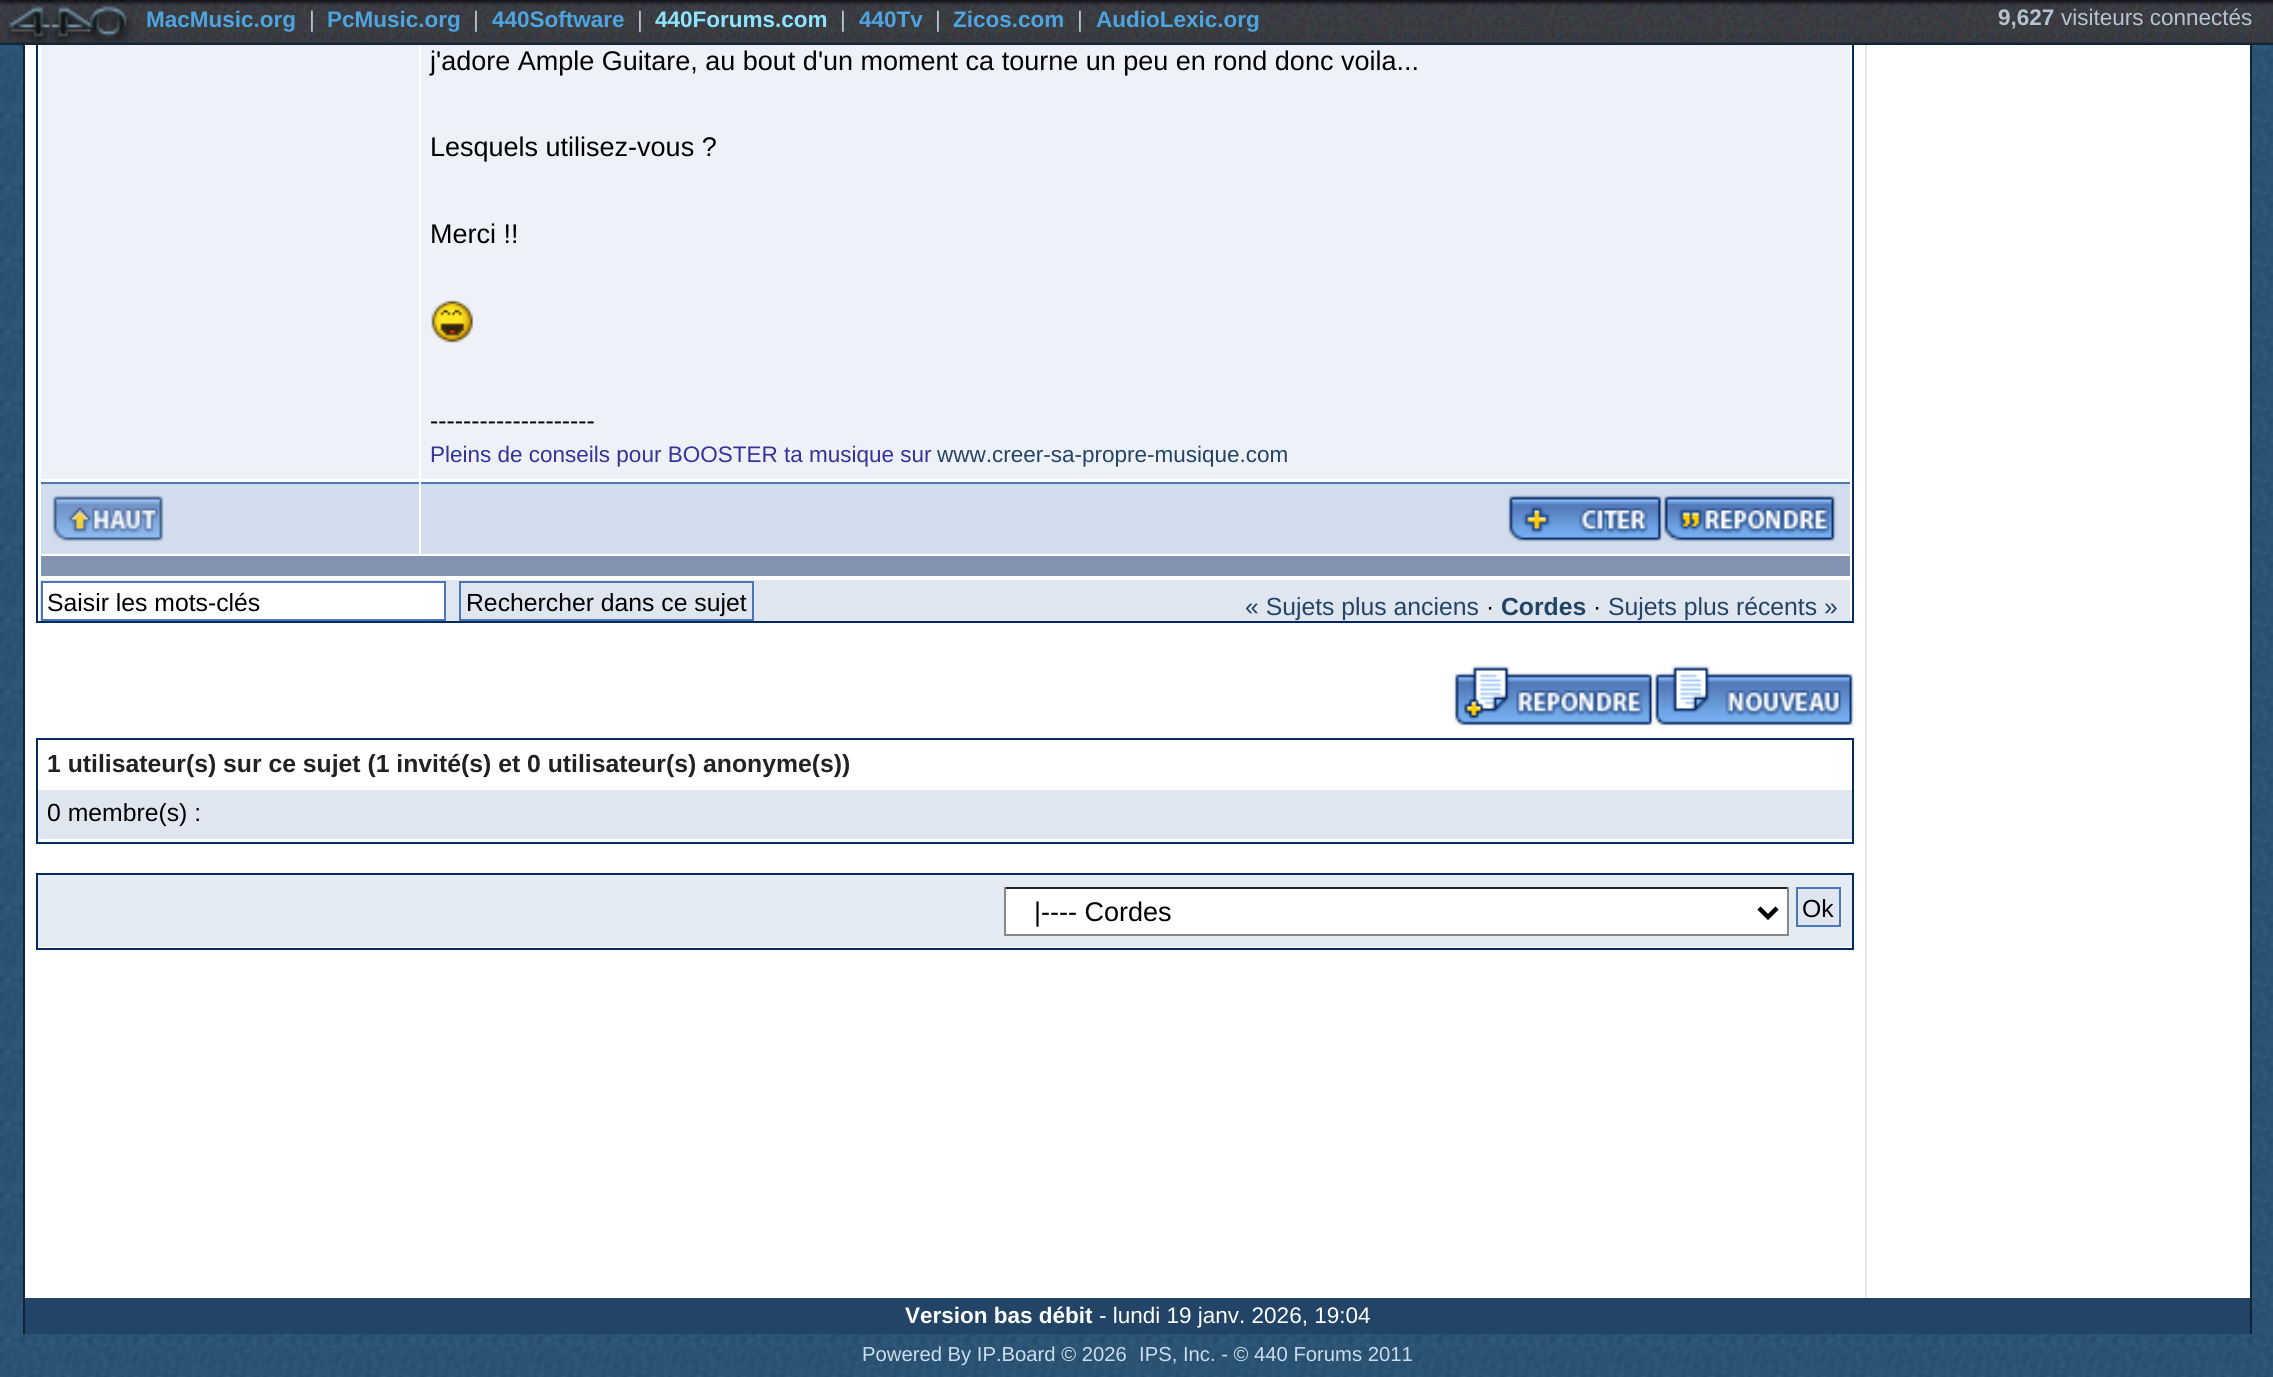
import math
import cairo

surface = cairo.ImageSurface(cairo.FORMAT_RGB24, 2273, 1377)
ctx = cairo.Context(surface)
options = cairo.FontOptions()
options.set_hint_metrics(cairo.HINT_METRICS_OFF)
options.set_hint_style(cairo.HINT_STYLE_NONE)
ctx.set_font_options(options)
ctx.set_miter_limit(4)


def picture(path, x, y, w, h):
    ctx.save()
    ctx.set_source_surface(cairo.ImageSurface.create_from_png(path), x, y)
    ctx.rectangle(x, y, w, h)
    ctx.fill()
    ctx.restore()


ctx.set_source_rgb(1, 1, 1)
ctx.paint()
picture("img1.png", 0, 45, 2273, 1332)
ctx.set_source_rgb(1, 1, 1)
ctx.rectangle(25, 45, 2225, 1253)
ctx.fill()
ctx.rectangle(37, -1, 1816, 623)
ctx.set_source_rgb(0.027, 0.165, 0.4)
ctx.stroke()
picture("img2.png", 0, 0, 2273, 45)
picture("img3.png", 0, 0, 136, 44)
ctx.select_font_face("Liberation Sans", cairo.FONT_SLANT_NORMAL, cairo.FONT_WEIGHT_BOLD)
ctx.set_font_size(22.5)
ctx.set_source_rgb(0.306, 0.643, 0.871)
ctx.move_to(146, 27)
ctx.show_text("MacMusic.org")
ctx.select_font_face("Liberation Sans")
ctx.set_source_rgb(0.718, 0.765, 0.82)
ctx.move_to(309, 27)
ctx.show_text("|")
ctx.select_font_face("Liberation Sans", cairo.FONT_SLANT_NORMAL, cairo.FONT_WEIGHT_BOLD)
ctx.set_source_rgb(0.306, 0.643, 0.871)
ctx.move_to(327, 27)
ctx.show_text("PcMusic.org")
ctx.select_font_face("Liberation Sans")
ctx.set_source_rgb(0.718, 0.765, 0.82)
ctx.move_to(473, 27)
ctx.show_text("|")
ctx.select_font_face("Liberation Sans", cairo.FONT_SLANT_NORMAL, cairo.FONT_WEIGHT_BOLD)
ctx.set_source_rgb(0.306, 0.643, 0.871)
ctx.move_to(492, 27)
ctx.show_text("440Software")
ctx.select_font_face("Liberation Sans")
ctx.set_source_rgb(0.718, 0.765, 0.82)
ctx.move_to(637, 27)
ctx.show_text("|")
ctx.select_font_face("Liberation Sans", cairo.FONT_SLANT_NORMAL, cairo.FONT_WEIGHT_BOLD)
ctx.set_source_rgb(0.557, 0.894, 1)
ctx.move_to(655, 27)
ctx.show_text("440Forums.com")
ctx.select_font_face("Liberation Sans")
ctx.set_source_rgb(0.718, 0.765, 0.82)
ctx.move_to(840, 27)
ctx.show_text("|")
ctx.select_font_face("Liberation Sans", cairo.FONT_SLANT_NORMAL, cairo.FONT_WEIGHT_BOLD)
ctx.set_source_rgb(0.306, 0.643, 0.871)
ctx.move_to(859, 27)
ctx.show_text("440Tv")
ctx.select_font_face("Liberation Sans")
ctx.set_source_rgb(0.718, 0.765, 0.82)
ctx.move_to(935, 27)
ctx.show_text("|")
ctx.select_font_face("Liberation Sans", cairo.FONT_SLANT_NORMAL, cairo.FONT_WEIGHT_BOLD)
ctx.set_source_rgb(0.306, 0.643, 0.871)
ctx.move_to(953, 27)
ctx.show_text("Zicos.com")
ctx.select_font_face("Liberation Sans")
ctx.set_source_rgb(0.718, 0.765, 0.82)
ctx.move_to(1077, 27)
ctx.show_text("|")
ctx.select_font_face("Liberation Sans", cairo.FONT_SLANT_NORMAL, cairo.FONT_WEIGHT_BOLD)
ctx.set_source_rgb(0.306, 0.643, 0.871)
ctx.move_to(1096, 27)
ctx.show_text("AudioLexic.org")
ctx.set_source_rgb(0.718, 0.765, 0.82)
ctx.move_to(1998, 25)
ctx.show_text("9,627")
ctx.select_font_face("Liberation Sans")
ctx.move_to(2061, 25)
ctx.show_text("visiteurs connectés")
ctx.set_source_rgb(0.067, 0.133, 0.2)
ctx.rectangle(2250, 45, 2, 1289)
ctx.fill()
ctx.rectangle(23, 45, 2, 1289)
ctx.fill()
ctx.set_source_rgb(0.933, 0.949, 0.969)
ctx.rectangle(41, 45, 378, 434)
ctx.fill()
ctx.rectangle(421, 45, 1429, 434)
ctx.fill()
ctx.set_font_size(27)
ctx.set_source_rgb(0, 0, 0)
ctx.move_to(430, 70)
ctx.show_text("j'adore Ample Guitare, au bout d'un moment ca tourne un peu en rond donc voila...")
ctx.move_to(430, 156)
ctx.show_text("Lesquels utilisez-vous ?")
ctx.move_to(430, 243)
ctx.show_text("Merci !!")
picture("img4.png", 431, 300, 43, 43)
ctx.set_font_size(24.75)
ctx.move_to(430, 429)
ctx.show_text("--------------------")
ctx.set_font_size(22.5)
ctx.set_source_rgb(0.2, 0.2, 0.6)
ctx.move_to(430, 462)
ctx.show_text("Pleins de conseils pour BOOSTER ta musique sur")
ctx.set_source_rgb(0.133, 0.267, 0.4)
ctx.move_to(937, 462)
ctx.show_text("www.creer-sa-propre-musique.com")
ctx.set_source_rgb(0.82, 0.863, 0.922)
ctx.rectangle(41, 484, 378, 70)
ctx.fill()
ctx.set_source_rgb(0.318, 0.463, 0.71)
ctx.rectangle(41, 482, 378, 2)
ctx.fill()
picture("img5.png", 52, 495, 112, 47)
ctx.set_source_rgb(0.82, 0.863, 0.922)
ctx.rectangle(421, 484, 1429, 70)
ctx.fill()
ctx.set_source_rgb(0.318, 0.463, 0.71)
ctx.rectangle(421, 482, 1429, 2)
ctx.fill()
picture("img6.png", 1507, 494, 156, 48)
picture("img7.png", 1663, 494, 174, 48)
ctx.set_source_rgb(0.514, 0.58, 0.698)
ctx.rectangle(41, 556, 1809, 20)
ctx.fill()
ctx.set_source_rgb(0.875, 0.902, 0.937)
ctx.rectangle(40, 580, 1810, 41)
ctx.fill()
ctx.set_source_rgb(1, 1, 1)
ctx.rectangle(42, 582, 403, 38)
ctx.fill_preserve()
ctx.set_source_rgb(0.298, 0.467, 0.714)
ctx.stroke()
ctx.set_font_size(24.75)
ctx.set_source_rgb(0, 0, 0)
ctx.move_to(47, 611)
ctx.show_text("Saisir les mots-clés")
ctx.rectangle(460, 582, 293, 38)
ctx.set_source_rgb(0.298, 0.467, 0.714)
ctx.stroke()
ctx.set_source_rgb(0, 0, 0)
ctx.move_to(466, 611)
ctx.show_text("Rechercher dans ce sujet")
ctx.set_source_rgb(0.133, 0.267, 0.4)
ctx.move_to(1245, 615)
ctx.show_text("« Sujets plus anciens")
ctx.set_source_rgb(0, 0, 0)
ctx.move_to(1486, 615)
ctx.show_text("·")
ctx.select_font_face("Liberation Sans", cairo.FONT_SLANT_NORMAL, cairo.FONT_WEIGHT_BOLD)
ctx.set_source_rgb(0.133, 0.267, 0.4)
ctx.move_to(1501, 615)
ctx.show_text("Cordes")
ctx.select_font_face("Liberation Sans")
ctx.set_source_rgb(0, 0, 0)
ctx.move_to(1593, 615)
ctx.show_text("·")
ctx.set_source_rgb(0.133, 0.267, 0.4)
ctx.move_to(1608, 615)
ctx.show_text("Sujets plus récents »")
picture("img8.png", 1453, 665, 201, 62)
picture("img9.png", 1654, 665, 200, 62)
ctx.rectangle(37, 739, 1816, 104)
ctx.set_source_rgb(0.027, 0.165, 0.4)
ctx.stroke()
ctx.select_font_face("Liberation Sans", cairo.FONT_SLANT_NORMAL, cairo.FONT_WEIGHT_BOLD)
ctx.set_source_rgb(0.133, 0.133, 0.133)
ctx.move_to(47, 772)
ctx.show_text("1 utilisateur(s) sur ce sujet (1 invité(s) et 0 utilisateur(s) anonyme(s))")
ctx.set_source_rgb(0.875, 0.902, 0.937)
ctx.rectangle(38, 790, 1814, 49)
ctx.fill()
ctx.select_font_face("Liberation Sans")
ctx.set_source_rgb(0, 0, 0)
ctx.move_to(47, 821)
ctx.show_text("0 membre(s) :")
ctx.rectangle(37, 874, 1816, 75)
ctx.set_source_rgb(0.027, 0.165, 0.4)
ctx.stroke()
ctx.set_source_rgb(0.894, 0.918, 0.949)
ctx.rectangle(38, 875, 1814, 72)
ctx.fill()
ctx.set_source_rgb(1, 1, 1)
ctx.rectangle(1006, 889, 781, 45)
ctx.fill()
ctx.set_source_rgb(0.133, 0.133, 0.133)
ctx.rectangle(1004, 887, 785, 2)
ctx.fill()
ctx.set_source_rgb(0.533, 0.533, 0.533)
ctx.rectangle(1787, 887, 2, 49)
ctx.fill()
ctx.rectangle(1004, 934, 785, 2)
ctx.fill()
ctx.rectangle(1004, 887, 2, 49)
ctx.fill()
ctx.new_path()
ctx.move_to(1759, 908)
ctx.line_to(1768, 917)
ctx.line_to(1777, 908)
ctx.set_source_rgb(0, 0, 0)
ctx.set_line_width(4.5)
ctx.stroke()
ctx.set_font_size(27)
ctx.move_to(1034, 921)
ctx.show_text("|---- Cordes")
ctx.set_source_rgb(0.875, 0.902, 0.937)
ctx.rectangle(1797, 888, 43, 38)
ctx.fill_preserve()
ctx.set_source_rgb(0.298, 0.467, 0.714)
ctx.set_line_width(2)
ctx.stroke()
ctx.set_font_size(24.75)
ctx.set_source_rgb(0, 0, 0)
ctx.move_to(1802, 917)
ctx.show_text("Ok")
ctx.set_source_rgb(0.898, 0.898, 0.937)
ctx.rectangle(1865, 45, 2, 1253)
ctx.fill()
ctx.set_source_rgb(0.133, 0.267, 0.4)
ctx.rectangle(25, 1298, 2225, 36)
ctx.fill()
ctx.select_font_face("Liberation Sans", cairo.FONT_SLANT_NORMAL, cairo.FONT_WEIGHT_BOLD)
ctx.set_font_size(22.5)
ctx.set_source_rgb(1, 1, 1)
ctx.move_to(905, 1323)
ctx.show_text("Version bas débit")
ctx.select_font_face("Liberation Sans")
ctx.move_to(1099, 1323)
ctx.show_text("- lundi 19 janv. 2026, 19:04")
ctx.set_font_size(20.25)
ctx.set_source_rgb(0.8, 0.867, 0.933)
ctx.move_to(862, 1361)
ctx.show_text("Powered By IP.Board © 2026")
ctx.move_to(1139, 1361)
ctx.show_text("IPS, Inc. - © 440 Forums 2011")
surface.write_to_png("page.png")
